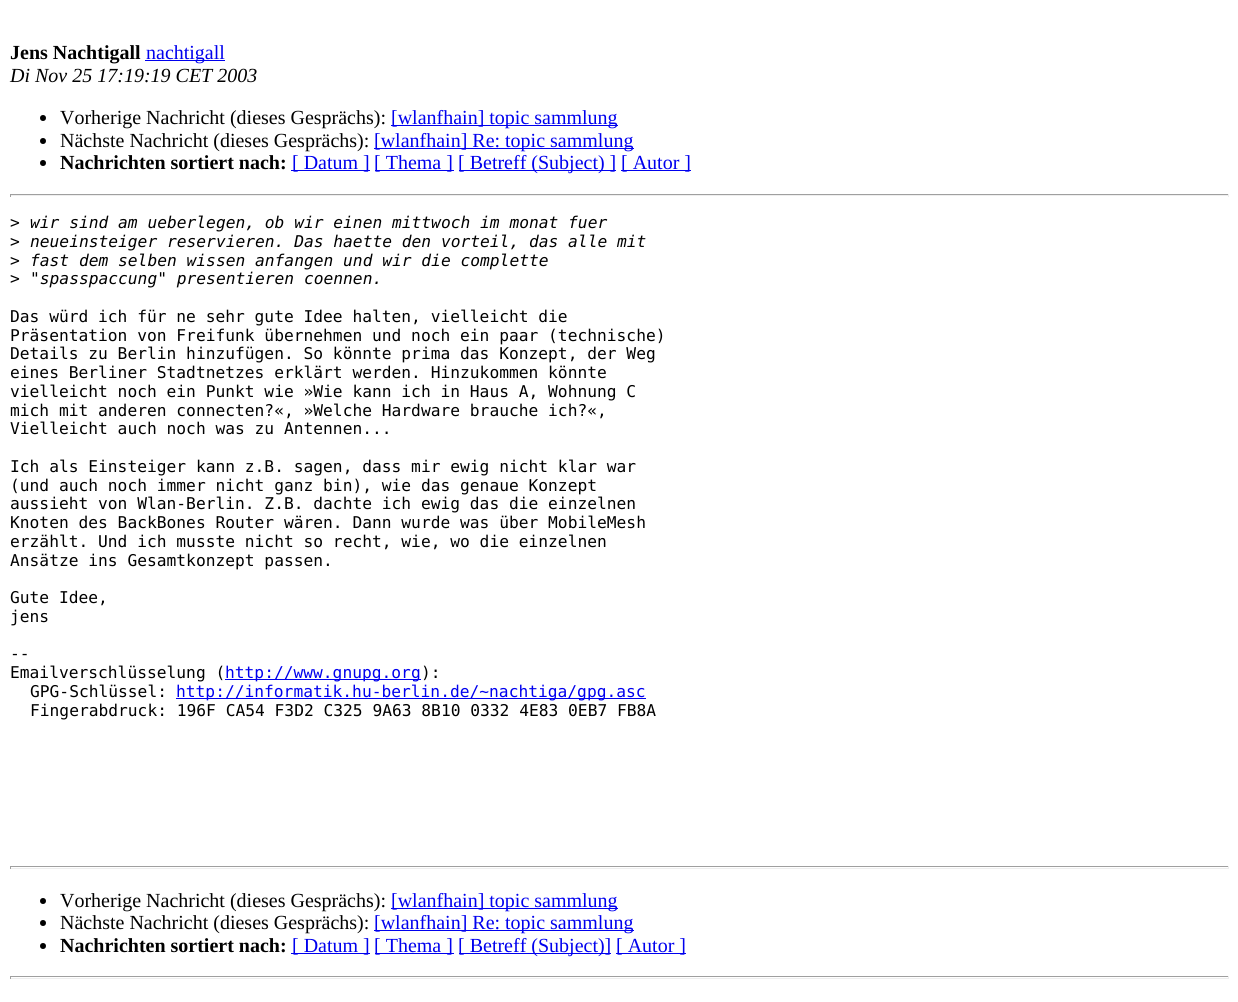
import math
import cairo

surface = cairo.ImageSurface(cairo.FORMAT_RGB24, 1238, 1002)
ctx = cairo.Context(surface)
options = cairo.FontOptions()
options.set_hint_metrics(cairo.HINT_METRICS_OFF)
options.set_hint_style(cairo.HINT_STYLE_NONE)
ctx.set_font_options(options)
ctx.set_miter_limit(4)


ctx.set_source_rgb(1, 1, 1)
ctx.paint()
ctx.select_font_face("Liberation Serif", cairo.FONT_SLANT_NORMAL, cairo.FONT_WEIGHT_BOLD)
ctx.set_font_size(20)
ctx.set_source_rgb(0, 0, 0)
ctx.move_to(10, 59)
ctx.show_text("Jens Nachtigall")
ctx.set_source_rgb(0, 0, 0.933)
ctx.rectangle(145, 60, 80, 1)
ctx.fill()
ctx.select_font_face("Liberation Serif")
ctx.move_to(146, 59)
ctx.show_text("nachtigall")
ctx.select_font_face("Liberation Serif", cairo.FONT_SLANT_ITALIC)
ctx.set_source_rgb(0, 0, 0)
ctx.move_to(10, 82)
ctx.show_text("Di Nov 25 17:19:19 CET 2003")
ctx.new_path()
ctx.arc(43, 118, 3, 0, 2 * math.pi)
ctx.fill()
ctx.select_font_face("Liberation Serif")
ctx.move_to(60, 124)
ctx.show_text("Vorherige Nachricht (dieses Gesprächs):")
ctx.set_source_rgb(0, 0, 0.933)
ctx.rectangle(391, 125, 227, 1)
ctx.fill()
ctx.move_to(391, 124)
ctx.show_text("[wlanfhain] topic sammlung")
ctx.set_source_rgb(0, 0, 0)
ctx.new_path()
ctx.arc(43, 141, 3, 0, 2 * math.pi)
ctx.fill()
ctx.move_to(60, 147)
ctx.show_text("Nächste Nachricht (dieses Gesprächs):")
ctx.set_source_rgb(0, 0, 0.933)
ctx.rectangle(374, 148, 260, 1)
ctx.fill()
ctx.move_to(374, 147)
ctx.show_text("[wlanfhain] Re: topic sammlung")
ctx.set_source_rgb(0, 0, 0)
ctx.new_path()
ctx.arc(43, 163, 3, 0, 2 * math.pi)
ctx.fill()
ctx.select_font_face("Liberation Serif", cairo.FONT_SLANT_NORMAL, cairo.FONT_WEIGHT_BOLD)
ctx.move_to(60, 169)
ctx.show_text("Nachrichten sortiert nach:")
ctx.set_source_rgb(0, 0, 0.933)
ctx.rectangle(291, 170, 79, 1)
ctx.fill()
ctx.select_font_face("Liberation Serif")
ctx.move_to(292, 169)
ctx.show_text("[ Datum ]")
ctx.rectangle(375, 170, 79, 1)
ctx.fill()
ctx.move_to(374, 169)
ctx.show_text("[ Thema ]")
ctx.rectangle(459, 170, 157, 1)
ctx.fill()
ctx.move_to(458, 169)
ctx.show_text("[ Betreff (Subject) ]")
ctx.rectangle(621, 170, 70, 1)
ctx.fill()
ctx.move_to(621, 169)
ctx.show_text("[ Autor ]")
ctx.set_source_rgb(0.624, 0.624, 0.624)
ctx.rectangle(10, 194, 1219, 1)
ctx.fill()
ctx.set_source_rgb(0.933, 0.933, 0.933)
ctx.rectangle(1228, 194, 1, 3)
ctx.fill()
ctx.rectangle(10, 195, 1219, 1)
ctx.fill()
ctx.set_source_rgb(0.624, 0.624, 0.624)
ctx.rectangle(10, 194, 1, 3)
ctx.fill()
ctx.select_font_face("DejaVu Sans Mono")
ctx.set_font_size(16.25)
ctx.set_source_rgb(0, 0, 0)
ctx.move_to(10, 228)
ctx.show_text(">")
ctx.select_font_face("DejaVu Sans Mono", cairo.FONT_SLANT_ITALIC)
ctx.move_to(30, 228)
ctx.show_text("wir sind am ueberlegen, ob wir einen mittwoch im monat fuer")
ctx.select_font_face("DejaVu Sans Mono")
ctx.move_to(10, 247)
ctx.show_text(">")
ctx.select_font_face("DejaVu Sans Mono", cairo.FONT_SLANT_ITALIC)
ctx.move_to(30, 247)
ctx.show_text("neueinsteiger reservieren. Das haette den vorteil, das alle mit")
ctx.select_font_face("DejaVu Sans Mono")
ctx.move_to(10, 266)
ctx.show_text(">")
ctx.select_font_face("DejaVu Sans Mono", cairo.FONT_SLANT_ITALIC)
ctx.move_to(30, 266)
ctx.show_text("fast dem selben wissen anfangen und wir die complette")
ctx.select_font_face("DejaVu Sans Mono")
ctx.move_to(10, 284)
ctx.show_text(">")
ctx.select_font_face("DejaVu Sans Mono", cairo.FONT_SLANT_ITALIC)
ctx.move_to(30, 284)
ctx.show_text("\"spasspaccung\" presentieren coennen.")
ctx.select_font_face("DejaVu Sans Mono")
ctx.move_to(10, 322)
ctx.show_text("Das würd ich für ne sehr gute Idee halten, vielleicht die")
ctx.move_to(10, 341)
ctx.show_text("Präsentation von Freifunk übernehmen und noch ein paar (technische)")
ctx.move_to(10, 359)
ctx.show_text("Details zu Berlin hinzufügen. So könnte prima das Konzept, der Weg")
ctx.move_to(10, 378)
ctx.show_text("eines Berliner Stadtnetzes erklärt werden. Hinzukommen könnte")
ctx.move_to(10, 397)
ctx.show_text("vielleicht noch ein Punkt wie »Wie kann ich in Haus A, Wohnung C")
ctx.move_to(10, 416)
ctx.show_text("mich mit anderen connecten?«, »Welche Hardware brauche ich?«,")
ctx.move_to(10, 434)
ctx.show_text("Vielleicht auch noch was zu Antennen...")
ctx.move_to(10, 472)
ctx.show_text("Ich als Einsteiger kann z.B. sagen, dass mir ewig nicht klar war")
ctx.move_to(10, 491)
ctx.show_text("(und auch noch immer nicht ganz bin), wie das genaue Konzept")
ctx.move_to(10, 509)
ctx.show_text("aussieht von Wlan-Berlin. Z.B. dachte ich ewig das die einzelnen")
ctx.move_to(10, 528)
ctx.show_text("Knoten des BackBones Router wären. Dann wurde was über MobileMesh")
ctx.move_to(10, 547)
ctx.show_text("erzählt. Und ich musste nicht so recht, wie, wo die einzelnen")
ctx.move_to(10, 566)
ctx.show_text("Ansätze ins Gesamtkonzept passen.")
ctx.move_to(10, 603)
ctx.show_text("Gute Idee,")
ctx.move_to(10, 622)
ctx.show_text("jens")
ctx.move_to(10, 659)
ctx.show_text("--")
ctx.move_to(10, 678)
ctx.show_text("Emailverschlüsselung (")
ctx.set_source_rgb(0, 0, 0.933)
ctx.rectangle(225, 679, 196, 1)
ctx.fill()
ctx.move_to(225, 678)
ctx.show_text("http://www.gnupg.org")
ctx.set_source_rgb(0, 0, 0)
ctx.move_to(421, 678)
ctx.show_text("):")
ctx.move_to(30, 697)
ctx.show_text("GPG-Schlüssel:")
ctx.set_source_rgb(0, 0, 0.933)
ctx.rectangle(176, 698, 470, 1)
ctx.fill()
ctx.move_to(176, 697)
ctx.show_text("http://informatik.hu-berlin.de/~nachtiga/gpg.asc")
ctx.set_source_rgb(0, 0, 0)
ctx.move_to(30, 716)
ctx.show_text("Fingerabdruck: 196F CA54 F3D2 C325 9A63 8B10 0332 4E83 0EB7 FB8A")
ctx.set_source_rgb(0.624, 0.624, 0.624)
ctx.rectangle(10, 866, 1219, 1)
ctx.fill()
ctx.set_source_rgb(0.933, 0.933, 0.933)
ctx.rectangle(1228, 866, 1, 3)
ctx.fill()
ctx.rectangle(10, 868, 1219, 1)
ctx.fill()
ctx.set_source_rgb(0.624, 0.624, 0.624)
ctx.rectangle(10, 866, 1, 3)
ctx.fill()
ctx.set_source_rgb(0, 0, 0)
ctx.arc(43, 901, 3, 0, 2 * math.pi)
ctx.fill()
ctx.select_font_face("Liberation Serif")
ctx.set_font_size(20)
ctx.move_to(60, 907)
ctx.show_text("Vorherige Nachricht (dieses Gesprächs):")
ctx.set_source_rgb(0, 0, 0.933)
ctx.rectangle(391, 908, 227, 1)
ctx.fill()
ctx.move_to(391, 907)
ctx.show_text("[wlanfhain] topic sammlung")
ctx.set_source_rgb(0, 0, 0)
ctx.new_path()
ctx.arc(43, 923, 3, 0, 2 * math.pi)
ctx.fill()
ctx.move_to(60, 929)
ctx.show_text("Nächste Nachricht (dieses Gesprächs):")
ctx.set_source_rgb(0, 0, 0.933)
ctx.rectangle(374, 930, 260, 1)
ctx.fill()
ctx.move_to(374, 929)
ctx.show_text("[wlanfhain] Re: topic sammlung")
ctx.set_source_rgb(0, 0, 0)
ctx.new_path()
ctx.arc(43, 946, 3, 0, 2 * math.pi)
ctx.fill()
ctx.select_font_face("Liberation Serif", cairo.FONT_SLANT_NORMAL, cairo.FONT_WEIGHT_BOLD)
ctx.move_to(60, 952)
ctx.show_text("Nachrichten sortiert nach:")
ctx.set_source_rgb(0, 0, 0.933)
ctx.rectangle(291, 953, 79, 1)
ctx.fill()
ctx.select_font_face("Liberation Serif")
ctx.move_to(292, 952)
ctx.show_text("[ Datum ]")
ctx.rectangle(375, 953, 79, 1)
ctx.fill()
ctx.move_to(374, 952)
ctx.show_text("[ Thema ]")
ctx.rectangle(459, 953, 152, 1)
ctx.fill()
ctx.move_to(458, 952)
ctx.show_text("[ Betreff (Subject)]")
ctx.rectangle(616, 953, 70, 1)
ctx.fill()
ctx.move_to(616, 952)
ctx.show_text("[ Autor ]")
ctx.set_source_rgb(0.624, 0.624, 0.624)
ctx.rectangle(10, 976, 1219, 1)
ctx.fill()
ctx.set_source_rgb(0.933, 0.933, 0.933)
ctx.rectangle(1228, 976, 1, 3)
ctx.fill()
ctx.rectangle(10, 978, 1219, 1)
ctx.fill()
ctx.set_source_rgb(0.624, 0.624, 0.624)
ctx.rectangle(10, 976, 1, 3)
ctx.fill()
surface.write_to_png("page.png")
